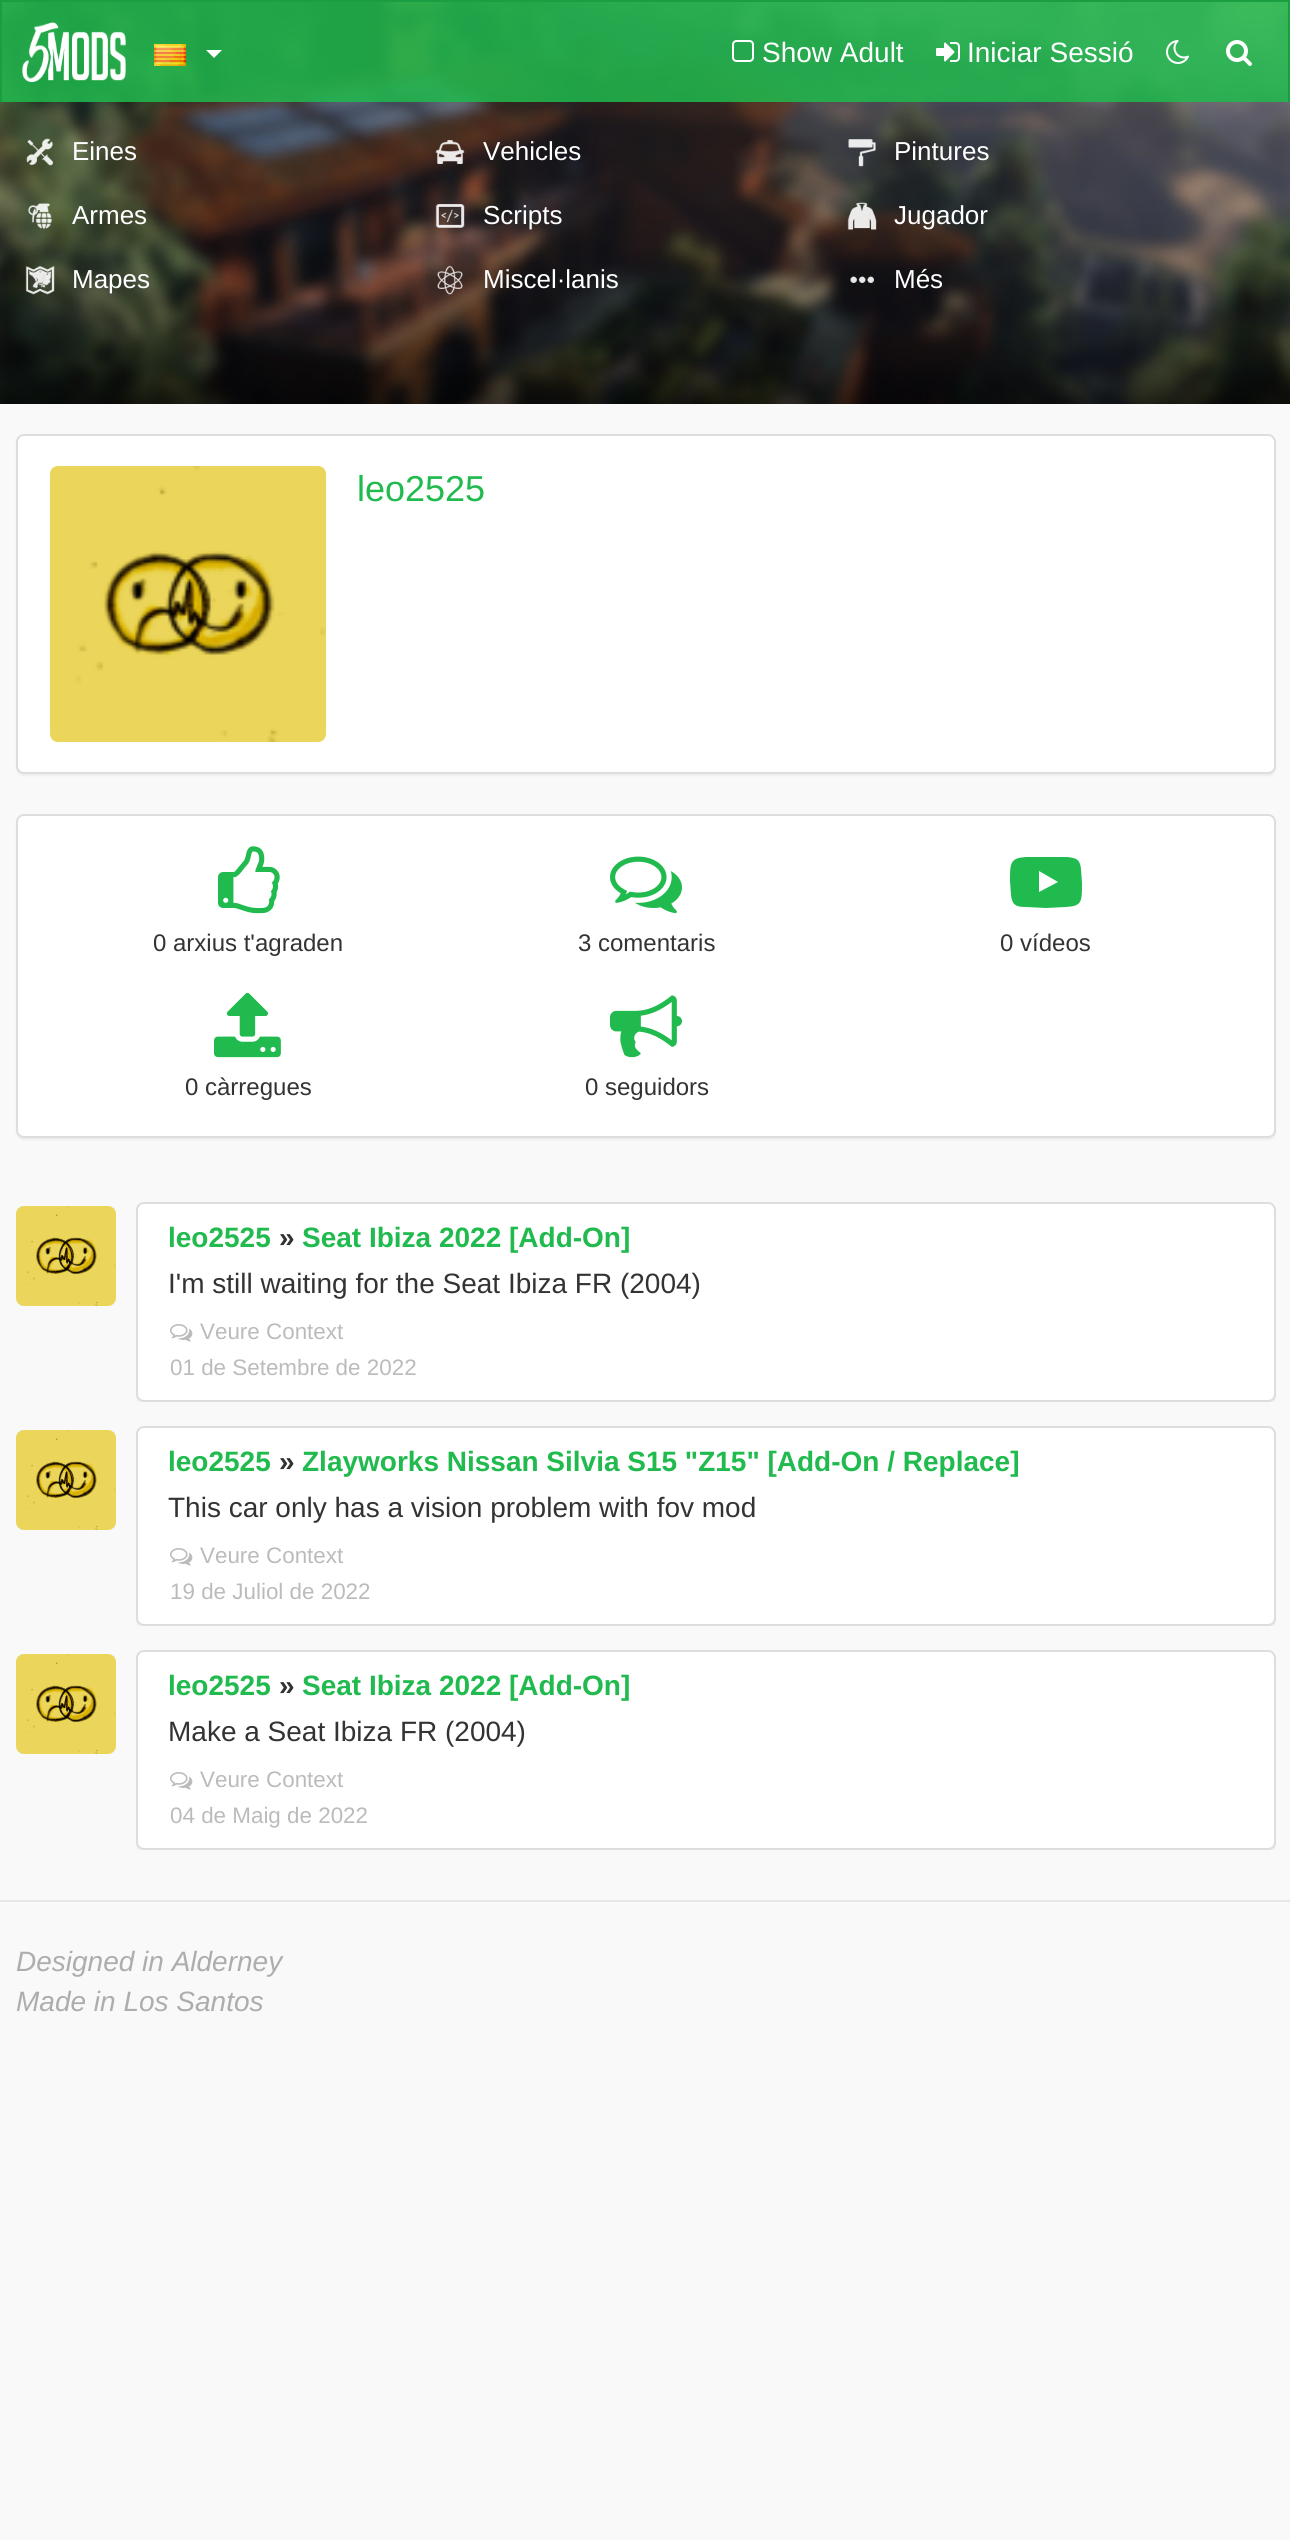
import math
import cairo

surface = cairo.ImageSurface(cairo.FORMAT_RGB24, 1290, 2540)
ctx = cairo.Context(surface)
options = cairo.FontOptions()
options.set_hint_metrics(cairo.HINT_METRICS_OFF)
options.set_hint_style(cairo.HINT_STYLE_NONE)
ctx.set_font_options(options)
ctx.set_miter_limit(4)


def round_rect(x, y, w, h, r):
    ctx.new_sub_path()
    for i, (u, v) in enumerate([(x + w - r, y + h - r), (x + r, y + h - r), (x + r, y + r), (x + w - r, y + r)]):
        ctx.arc(u, v, r, i * math.pi / 2, (i + 1) * math.pi / 2)
    ctx.close_path()


def shadow(x, y, w, h, r, blur, alpha):
    ctx.push_group_with_content(cairo.CONTENT_ALPHA)
    ctx.set_operator(cairo.OPERATOR_SOURCE)
    for i in range(15, -16, -2):
        e = blur * i / 6
        if min(w, h) + 2 * e > 0:
            ctx.set_source_rgba(0, 0, 0, alpha * math.erfc((i - 1) / 8.5) / 2)
            round_rect(x - e, y - e, w + 2 * e, h + 2 * e, max(0, min(r + e + blur * .6, min(w, h) / 2 + e)))
            ctx.fill()
    ctx.mask(ctx.pop_group())


def picture(path, x, y, w, h):
    ctx.save()
    ctx.set_source_surface(cairo.ImageSurface.create_from_png(path), x, y)
    ctx.rectangle(x, y, w, h)
    ctx.fill()
    ctx.restore()


ctx.set_source_rgb(0.976, 0.976, 0.976)
ctx.paint()
picture("img7.png", 0, 2, 1290, 402)
ctx.set_source_rgba(0.125, 0.729, 0.306, 0.85)
ctx.rectangle(2, 2, 1286, 100)
ctx.fill()
ctx.set_source_rgb(0.106, 0.62, 0.259)
ctx.rectangle(0, 0, 1290, 2)
ctx.fill()
ctx.rectangle(1288, 0, 2, 102)
ctx.fill()
ctx.rectangle(0, 0, 2, 102)
ctx.fill()
picture("img1.png", 22, 22, 104, 60)
picture("img2.png", 154, 44, 32, 22)
ctx.set_source_rgb(1, 1, 1)
ctx.new_path()
ctx.move_to(206, 50)
ctx.line_to(222, 50)
ctx.line_to(214, 58)
ctx.close_path()
ctx.fill()
picture("img3.png", 732, 40, 22, 22)
ctx.select_font_face("Liberation Sans")
ctx.set_font_size(28)
ctx.move_to(762, 62)
ctx.show_text("Show Adult")
picture("img4.png", 936, 42, 24, 20)
ctx.move_to(967, 62)
ctx.show_text("Iniciar Sessió")
picture("img5.png", 1166, 40, 23, 24)
picture("img6.png", 1226, 40, 26, 26)
picture("img8.png", 26, 138, 27, 28)
ctx.set_font_size(26)
ctx.move_to(72, 160)
ctx.show_text("Eines")
picture("img9.png", 435, 140, 30, 24)
ctx.move_to(483, 160)
ctx.show_text("Vehicles")
picture("img10.png", 848, 139, 28, 28)
ctx.move_to(894, 160)
ctx.show_text("Pintures")
picture("img11.png", 28, 203, 24, 26)
ctx.move_to(72, 224)
ctx.show_text("Armes")
picture("img12.png", 435, 204, 30, 24)
ctx.move_to(483, 224)
ctx.show_text("Scripts")
picture("img13.png", 847, 202, 30, 28)
ctx.move_to(894, 224)
ctx.show_text("Jugador")
picture("img14.png", 25, 265, 30, 30)
ctx.move_to(72, 288)
ctx.show_text("Mapes")
picture("img15.png", 437, 265, 26, 30)
ctx.move_to(483, 288)
ctx.show_text("Miscel·lanis")
picture("img16.png", 850, 276, 24, 7)
ctx.move_to(894, 288)
ctx.show_text("Més")
ctx.set_source_rgb(0, 0, 0)
shadow(16, 436, 1260, 340, 8, 1, 0.05)
ctx.set_source_rgb(1, 1, 1)
round_rect(17, 435, 1258, 338, 7)
ctx.fill_preserve()
ctx.set_source_rgb(0.867, 0.867, 0.867)
ctx.stroke()
picture("img17.png", 50, 466, 276, 276)
ctx.set_font_size(36)
ctx.set_source_rgb(0.125, 0.729, 0.306)
ctx.move_to(357, 501)
ctx.show_text("leo2525")
ctx.set_source_rgb(0, 0, 0)
shadow(16, 816, 1260, 324, 8, 1, 0.05)
ctx.set_source_rgb(1, 1, 1)
round_rect(17, 815, 1258, 322, 7)
ctx.fill_preserve()
ctx.set_source_rgb(0.867, 0.867, 0.867)
ctx.stroke()
picture("img18.png", 218, 846, 62, 68)
ctx.set_font_size(24)
ctx.set_source_rgb(0.2, 0.2, 0.2)
ctx.move_to(153, 951)
ctx.show_text("0 arxius t'agraden")
picture("img19.png", 610, 856, 72, 58)
ctx.move_to(578, 951)
ctx.show_text("3 comentaris")
ctx.set_source_rgb(0.125, 0.729, 0.306)
ctx.new_path()
ctx.move_to(1039, 892)
ctx.line_to(1058, 882)
ctx.line_to(1039, 871)
ctx.close_path()
ctx.move_to(1046, 857)
ctx.line_to(1067, 857)
ctx.curve_to(1076, 858, 1080, 859, 1081, 869)
ctx.line_to(1082, 883)
ctx.curve_to(1082, 902, 1082, 906, 1066, 907)
ctx.line_to(1046, 908)
ctx.line_to(1026, 907)
ctx.curve_to(1016, 907, 1012, 905, 1011, 895)
ctx.line_to(1010, 881)
ctx.curve_to(1010, 863, 1010, 858, 1026, 857)
ctx.close_path()
ctx.fill()
ctx.set_source_rgb(0.2, 0.2, 0.2)
ctx.move_to(1000, 951)
ctx.show_text("0 vídeos")
picture("img20.png", 214, 992, 67, 66)
ctx.move_to(185, 1095)
ctx.show_text("0 càrregues")
picture("img21.png", 610, 995, 72, 63)
ctx.move_to(585, 1095)
ctx.show_text("0 seguidors")
picture("img22.png", 16, 1206, 100, 100)
ctx.save()
ctx.rectangle(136, 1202, 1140, 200)
ctx.clip()
ctx.set_source_rgb(0, 0, 0)
shadow(136, 1204, 1140, 200, 8, 1, 0.05)
ctx.restore()
ctx.set_source_rgb(1, 1, 1)
round_rect(137, 1203, 1138, 198, 7)
ctx.fill_preserve()
ctx.set_source_rgb(0.867, 0.867, 0.867)
ctx.stroke()
ctx.select_font_face("Liberation Sans", cairo.FONT_SLANT_NORMAL, cairo.FONT_WEIGHT_BOLD)
ctx.set_font_size(28)
ctx.set_source_rgb(0.125, 0.729, 0.306)
ctx.move_to(168, 1247)
ctx.show_text("leo2525")
ctx.set_source_rgb(0.2, 0.2, 0.2)
ctx.move_to(279, 1247)
ctx.show_text("»")
ctx.set_source_rgb(0.125, 0.729, 0.306)
ctx.move_to(302, 1247)
ctx.show_text("Seat Ibiza 2022 [Add-On]")
ctx.select_font_face("Liberation Sans")
ctx.set_source_rgb(0.2, 0.2, 0.2)
ctx.move_to(168, 1293)
ctx.show_text("I'm still waiting for the Seat Ibiza FR (2004)")
picture("img23.png", 170, 1324, 23, 18)
ctx.set_font_size(22.4)
ctx.set_source_rgb(0.733, 0.733, 0.733)
ctx.move_to(200, 1339)
ctx.show_text("Veure Context")
ctx.move_to(170, 1375)
ctx.show_text("01 de Setembre de 2022")
picture("img24.png", 16, 1430, 100, 100)
ctx.save()
ctx.rectangle(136, 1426, 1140, 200)
ctx.clip()
ctx.set_source_rgb(0, 0, 0)
shadow(136, 1428, 1140, 200, 8, 1, 0.05)
ctx.restore()
ctx.set_source_rgb(1, 1, 1)
round_rect(137, 1427, 1138, 198, 7)
ctx.fill_preserve()
ctx.set_source_rgb(0.867, 0.867, 0.867)
ctx.stroke()
ctx.select_font_face("Liberation Sans", cairo.FONT_SLANT_NORMAL, cairo.FONT_WEIGHT_BOLD)
ctx.set_font_size(28)
ctx.set_source_rgb(0.125, 0.729, 0.306)
ctx.move_to(168, 1471)
ctx.show_text("leo2525")
ctx.set_source_rgb(0.2, 0.2, 0.2)
ctx.move_to(279, 1471)
ctx.show_text("»")
ctx.set_source_rgb(0.125, 0.729, 0.306)
ctx.move_to(302, 1471)
ctx.show_text("Zlayworks Nissan Silvia S15 \"Z15\" [Add-On / Replace]")
ctx.select_font_face("Liberation Sans")
ctx.set_source_rgb(0.2, 0.2, 0.2)
ctx.move_to(168, 1517)
ctx.show_text("This car only has a vision problem with fov mod")
picture("img23.png", 170, 1548, 23, 18)
ctx.set_font_size(22.4)
ctx.set_source_rgb(0.733, 0.733, 0.733)
ctx.move_to(200, 1563)
ctx.show_text("Veure Context")
ctx.move_to(170, 1599)
ctx.show_text("19 de Juliol de 2022")
picture("img22.png", 16, 1654, 100, 100)
ctx.save()
ctx.rectangle(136, 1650, 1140, 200)
ctx.clip()
ctx.set_source_rgb(0, 0, 0)
shadow(136, 1652, 1140, 200, 8, 1, 0.05)
ctx.restore()
ctx.set_source_rgb(1, 1, 1)
round_rect(137, 1651, 1138, 198, 7)
ctx.fill_preserve()
ctx.set_source_rgb(0.867, 0.867, 0.867)
ctx.stroke()
ctx.select_font_face("Liberation Sans", cairo.FONT_SLANT_NORMAL, cairo.FONT_WEIGHT_BOLD)
ctx.set_font_size(28)
ctx.set_source_rgb(0.125, 0.729, 0.306)
ctx.move_to(168, 1695)
ctx.show_text("leo2525")
ctx.set_source_rgb(0.2, 0.2, 0.2)
ctx.move_to(279, 1695)
ctx.show_text("»")
ctx.set_source_rgb(0.125, 0.729, 0.306)
ctx.move_to(302, 1695)
ctx.show_text("Seat Ibiza 2022 [Add-On]")
ctx.select_font_face("Liberation Sans")
ctx.set_source_rgb(0.2, 0.2, 0.2)
ctx.move_to(168, 1741)
ctx.show_text("Make a Seat Ibiza FR (2004)")
picture("img23.png", 170, 1772, 23, 18)
ctx.set_font_size(22.4)
ctx.set_source_rgb(0.733, 0.733, 0.733)
ctx.move_to(200, 1787)
ctx.show_text("Veure Context")
ctx.move_to(170, 1823)
ctx.show_text("04 de Maig de 2022")
ctx.set_source_rgb(0.906, 0.906, 0.906)
ctx.rectangle(0, 1900, 1290, 2)
ctx.fill()
ctx.select_font_face("Liberation Sans", cairo.FONT_SLANT_ITALIC)
ctx.set_font_size(28)
ctx.set_source_rgb(0.678, 0.678, 0.678)
ctx.move_to(16, 1971)
ctx.show_text("Designed in Alderney")
ctx.move_to(16, 2011)
ctx.show_text("Made in Los Santos")
surface.write_to_png("page.png")
